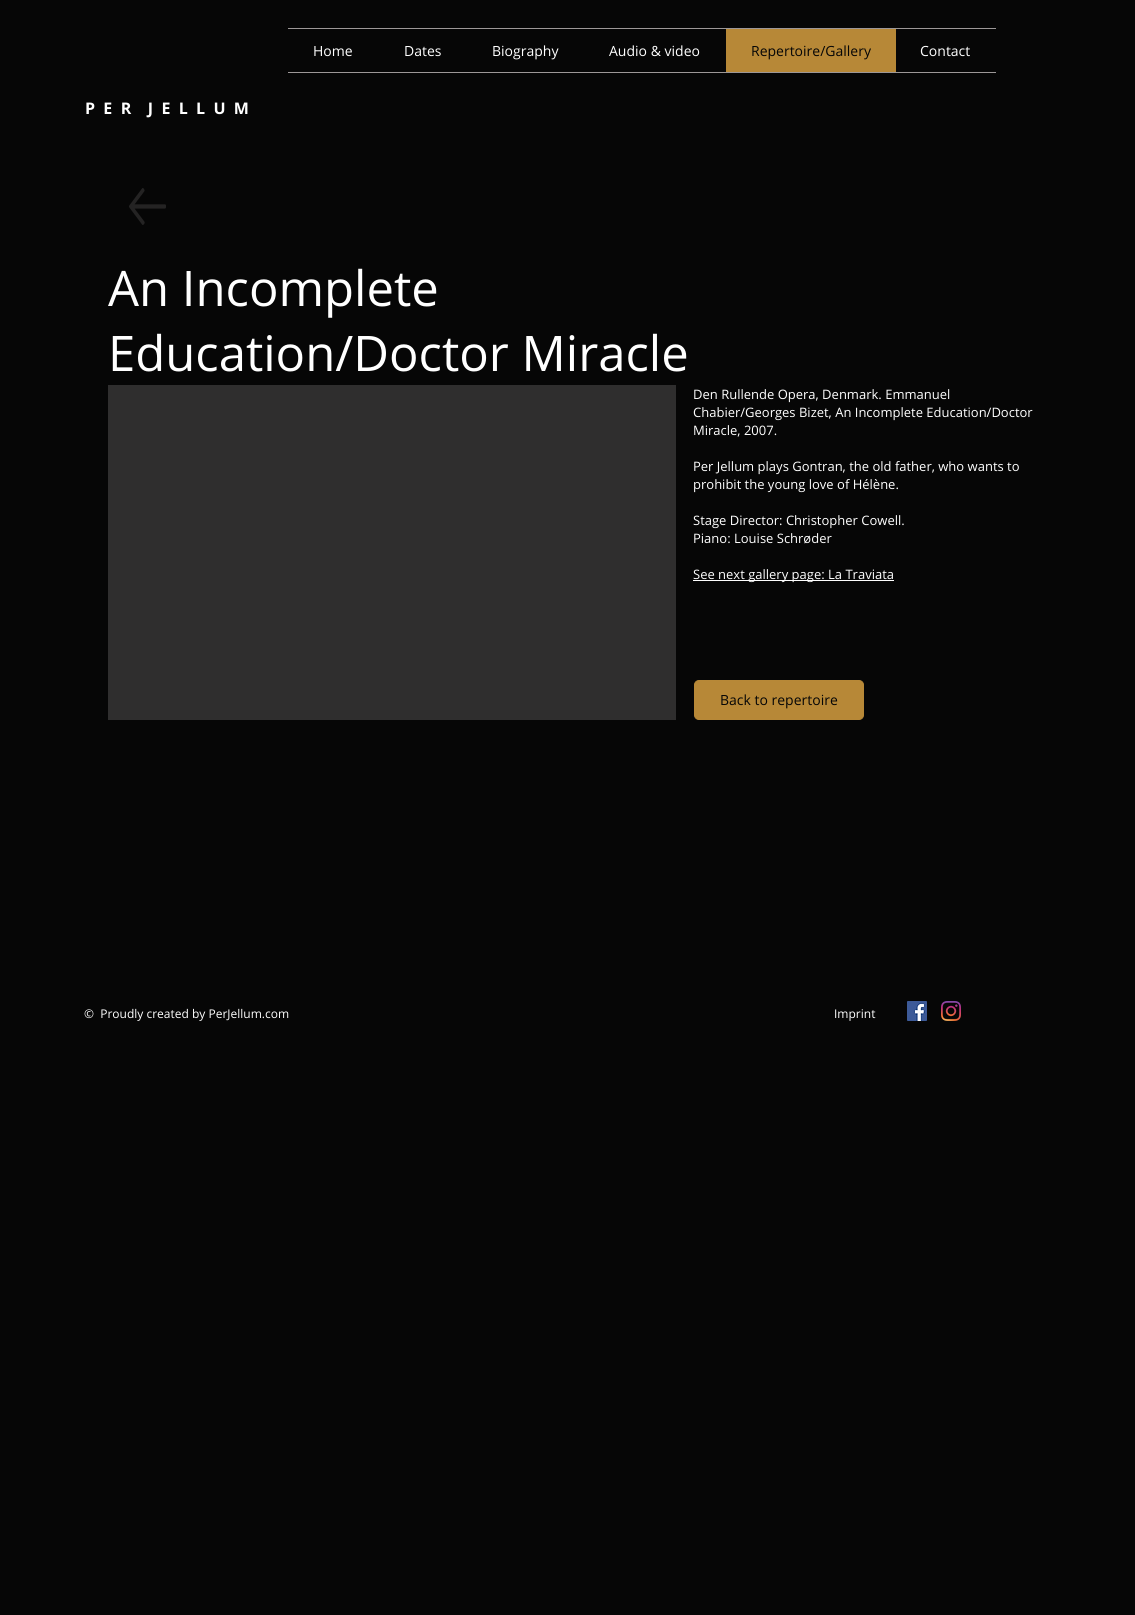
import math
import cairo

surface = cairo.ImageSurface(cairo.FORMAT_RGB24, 1135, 1615)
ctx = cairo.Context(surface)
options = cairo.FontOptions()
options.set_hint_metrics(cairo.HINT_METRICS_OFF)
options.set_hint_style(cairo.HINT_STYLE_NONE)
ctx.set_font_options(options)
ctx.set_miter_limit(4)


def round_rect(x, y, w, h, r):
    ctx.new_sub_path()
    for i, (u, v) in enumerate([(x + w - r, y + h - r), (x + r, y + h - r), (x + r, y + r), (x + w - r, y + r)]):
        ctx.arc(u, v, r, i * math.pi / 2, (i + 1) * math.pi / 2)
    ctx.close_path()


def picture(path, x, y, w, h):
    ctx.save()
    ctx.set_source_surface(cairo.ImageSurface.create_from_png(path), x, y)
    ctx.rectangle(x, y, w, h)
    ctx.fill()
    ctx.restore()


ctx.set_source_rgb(0.027, 0.024, 0.024)
ctx.paint()
ctx.set_source_rgb(0.612, 0.592, 0.592)
ctx.rectangle(288, 28, 708, 1)
ctx.fill()
ctx.rectangle(288, 72, 708, 1)
ctx.fill()
ctx.select_font_face("Open Sans")
ctx.set_font_size(14)
ctx.set_source_rgb(1, 1, 1)
ctx.move_to(313, 56)
ctx.show_text("Home")
ctx.move_to(404, 56)
ctx.show_text("Dates")
ctx.move_to(492, 56)
ctx.show_text("Biography")
ctx.move_to(609, 56)
ctx.show_text("Audio & video")
ctx.set_source_rgb(0.718, 0.533, 0.216)
ctx.rectangle(726, 29, 170, 43)
ctx.fill()
ctx.set_source_rgb(0.027, 0.024, 0.024)
ctx.move_to(751, 56)
ctx.show_text("Repertoire/Gallery")
ctx.set_source_rgb(1, 1, 1)
ctx.move_to(920, 56)
ctx.show_text("Contact")
ctx.select_font_face("Open Sans", cairo.FONT_SLANT_NORMAL, cairo.FONT_WEIGHT_BOLD)
ctx.set_font_size(16)
ctx.move_to(85, 114)
ctx.show_text("P  E  R    J  E  L  L  U  M")
picture("img1.png", 129, 188, 37, 37)
ctx.select_font_face("Open Sans")
ctx.set_font_size(49)
ctx.move_to(108, 306)
ctx.show_text("An Incomplete")
ctx.move_to(108, 371)
ctx.show_text("Education/Doctor Miracle")
ctx.set_source_rgb(0.184, 0.18, 0.18)
ctx.rectangle(108, 385, 568, 335)
ctx.fill()
ctx.set_font_size(13)
ctx.set_source_rgb(1, 1, 1)
ctx.move_to(693, 399)
ctx.show_text("Den Rullende Opera, Denmark. Emmanuel")
ctx.move_to(693, 417)
ctx.show_text("Chabier/Georges Bizet, An Incomplete Education/Doctor")
ctx.move_to(693, 435)
ctx.show_text("Miracle, 2007.")
ctx.move_to(693, 471)
ctx.show_text("Per Jellum plays Gontran, the old father, who wants to")
ctx.move_to(693, 489)
ctx.show_text("prohibit the young love of Hélène.")
ctx.move_to(693, 525)
ctx.show_text("Stage Director: Christopher Cowell.")
ctx.move_to(693, 543)
ctx.show_text("Piano: Louise Schrøder")
ctx.rectangle(693, 580, 201, 1)
ctx.fill()
ctx.move_to(693, 579)
ctx.show_text("See next gallery page: La Traviata")
ctx.set_source_rgb(0.718, 0.533, 0.216)
round_rect(694.5, 680.5, 169, 39, 4.5)
ctx.fill_preserve()
ctx.set_line_width(1)
ctx.stroke()
ctx.set_font_size(14)
ctx.set_source_rgb(0.027, 0.024, 0.024)
ctx.move_to(720, 705)
ctx.show_text("Back to repertoire")
ctx.set_font_size(12)
ctx.set_source_rgb(1, 1, 1)
ctx.move_to(84, 1018)
ctx.show_text("©  Proudly created by PerJellum.com")
ctx.move_to(834, 1018)
ctx.show_text("Imprint")
picture("img2.png", 907, 1001, 20, 20)
picture("img3.png", 941, 1001, 20, 20)
surface.write_to_png("page.png")
